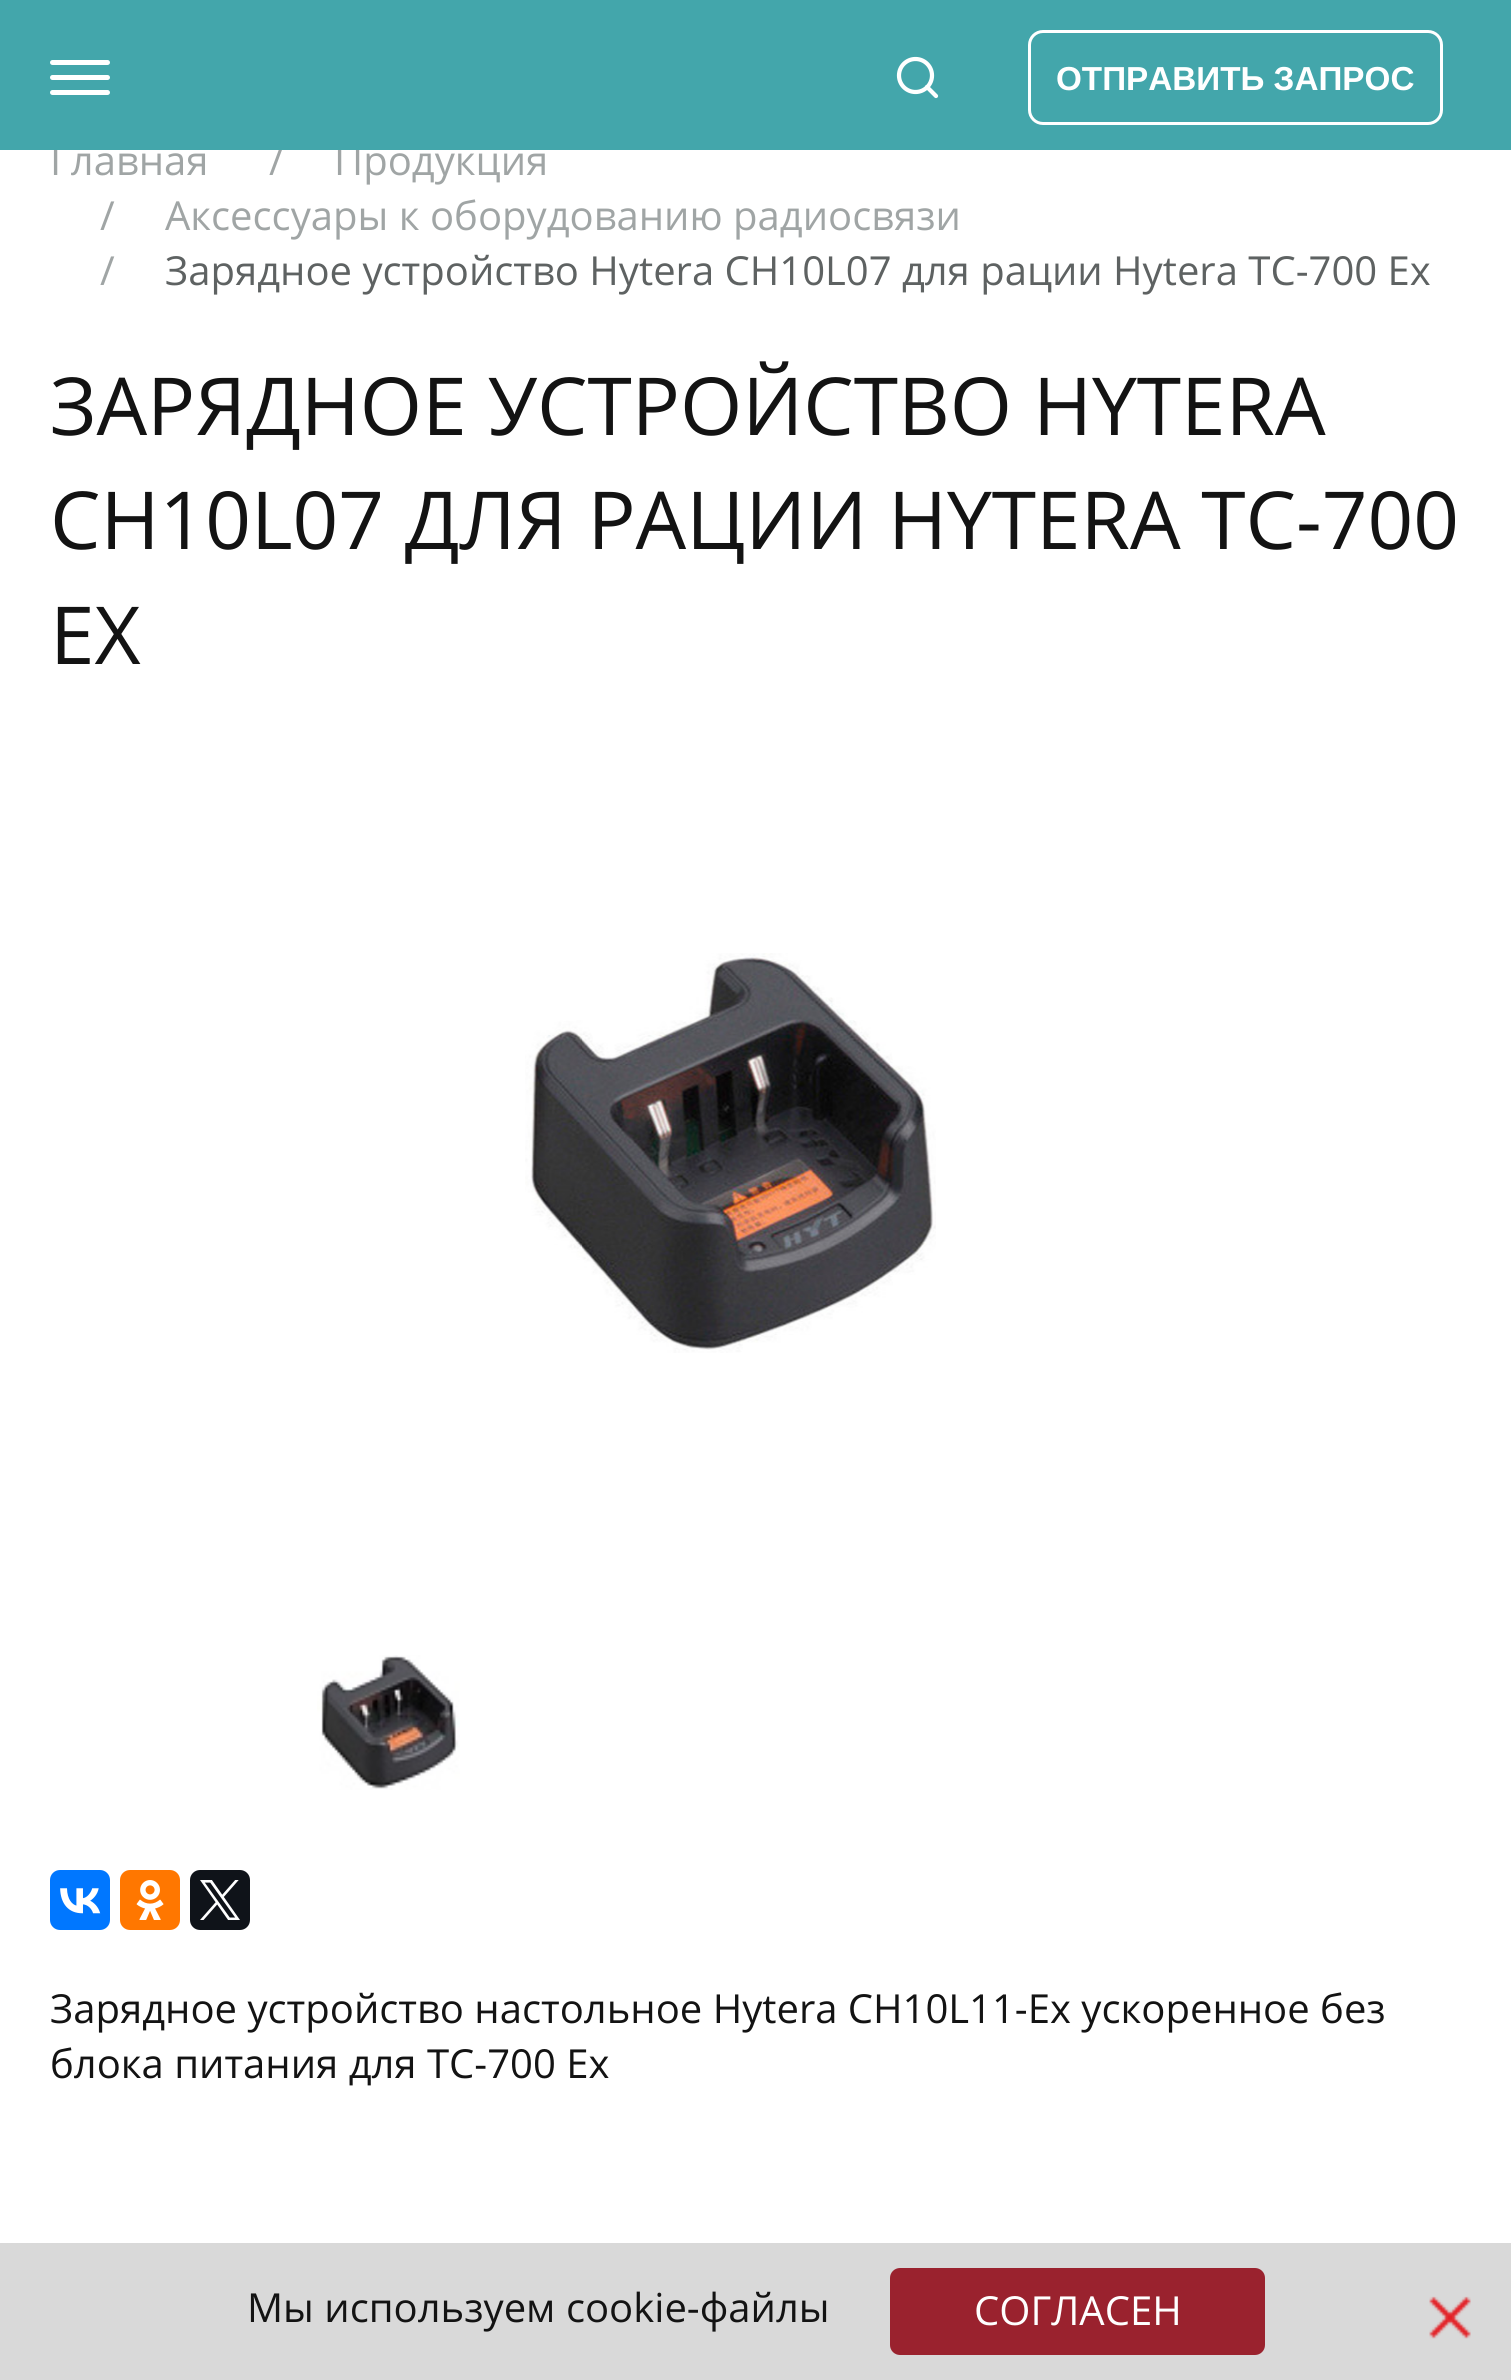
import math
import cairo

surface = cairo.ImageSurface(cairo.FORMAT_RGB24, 1511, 2380)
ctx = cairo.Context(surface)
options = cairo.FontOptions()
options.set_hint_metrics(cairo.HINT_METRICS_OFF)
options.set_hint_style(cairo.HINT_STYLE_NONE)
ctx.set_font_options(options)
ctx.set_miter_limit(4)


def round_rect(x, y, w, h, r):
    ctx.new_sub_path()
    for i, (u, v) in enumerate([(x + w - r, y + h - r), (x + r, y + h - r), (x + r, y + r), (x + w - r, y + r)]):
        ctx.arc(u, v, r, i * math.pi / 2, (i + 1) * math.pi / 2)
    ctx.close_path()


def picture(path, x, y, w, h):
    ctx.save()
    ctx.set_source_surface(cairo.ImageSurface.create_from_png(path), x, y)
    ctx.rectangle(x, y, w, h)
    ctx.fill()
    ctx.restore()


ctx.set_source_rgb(1, 1, 1)
ctx.paint()
ctx.select_font_face("Open Sans")
ctx.set_font_size(40)
ctx.set_source_rgb(0.627, 0.647, 0.647)
ctx.move_to(50, 175)
ctx.show_text("Главная")
ctx.move_to(269, 175)
ctx.show_text("/")
ctx.move_to(334, 175)
ctx.show_text("Продукция")
ctx.set_source_rgb(0.263, 0.651, 0.671)
ctx.rectangle(0, 0, 1511, 150)
ctx.fill()
ctx.set_source_rgb(1, 1, 1)
round_rect(50, 75, 60, 5, 2.5)
ctx.fill()
round_rect(50, 60, 60, 5, 2.5)
ctx.fill()
round_rect(50, 90, 60, 5, 2.5)
ctx.fill()
ctx.arc(915.5, 75.5, 16.5, 0, 2 * math.pi)
ctx.set_line_width(4.2)
ctx.stroke()
ctx.new_path()
ctx.move_to(936, 96)
ctx.line_to(927, 87)
ctx.set_line_cap(cairo.LINE_CAP_ROUND)
ctx.set_line_join(cairo.LINE_JOIN_ROUND)
ctx.stroke()
round_rect(1029.5, 31.5, 412, 92, 13.5)
ctx.set_line_width(3)
ctx.set_line_cap(cairo.LINE_CAP_BUTT)
ctx.set_line_join(cairo.LINE_JOIN_MITER)
ctx.stroke()
ctx.select_font_face("Liberation Sans", cairo.FONT_SLANT_NORMAL, cairo.FONT_WEIGHT_BOLD)
ctx.set_font_size(33.25)
ctx.move_to(1056, 90)
ctx.show_text("ОТПРАВИТЬ ЗАПРОС")
ctx.select_font_face("Open Sans")
ctx.set_font_size(40)
ctx.set_source_rgb(0.627, 0.647, 0.647)
ctx.move_to(100, 230)
ctx.show_text("/")
ctx.move_to(165, 230)
ctx.show_text("Аксессуары к оборудованию радиосвязи")
ctx.move_to(100, 285)
ctx.show_text("/")
ctx.set_source_rgb(0.369, 0.384, 0.384)
ctx.move_to(165, 285)
ctx.show_text("Зарядное устройство Hytera CH10L07 для рации Hytera TC-700 Ex")
ctx.set_font_size(80)
ctx.set_source_rgb(0.078, 0.078, 0.078)
ctx.move_to(50, 435)
ctx.show_text("ЗАРЯДНОЕ УСТРОЙСТВО HYTERA")
ctx.move_to(50, 549)
ctx.show_text("CH10L07 ДЛЯ РАЦИИ HYTERA TC-700")
ctx.move_to(50, 664)
ctx.show_text("EX")
picture("img1.png", 525, 953, 411, 400)
picture("img2.png", 317, 1655, 143, 135)
ctx.set_source_rgb(0, 0.467, 1)
round_rect(50, 1870, 60, 60, 10)
ctx.fill()
picture("img3.png", 60, 1888, 41, 26)
ctx.set_source_rgb(1, 0.467, 0)
round_rect(120, 1870, 60, 60, 10)
ctx.fill()
picture("img4.png", 136, 1880, 28, 40)
ctx.set_source_rgb(0.059, 0.078, 0.098)
round_rect(190, 1870, 60, 60, 10)
ctx.fill()
picture("img5.png", 200, 1880, 40, 40)
ctx.set_font_size(40)
ctx.set_source_rgb(0.078, 0.078, 0.078)
ctx.move_to(50, 2023)
ctx.show_text("Зарядное устройство настольное Hytera CH10L11-Ex ускоренное без")
ctx.move_to(50, 2078)
ctx.show_text("блока питания для TC-700 Ex")
ctx.set_source_rgb(0.851, 0.851, 0.851)
ctx.rectangle(0, 2243, 1511, 137)
ctx.fill()
ctx.set_source_rgb(0.078, 0.078, 0.078)
ctx.move_to(247, 2322)
ctx.show_text("Мы используем cookie-файлы")
ctx.set_source_rgb(0.604, 0.133, 0.18)
round_rect(890, 2268, 375, 87, 10)
ctx.fill()
ctx.set_source_rgb(1, 1, 1)
ctx.move_to(974, 2325)
ctx.show_text("СОГЛАСЕН")
picture("img6.png", 1429, 2296, 42, 43)
surface.write_to_png("page.png")
